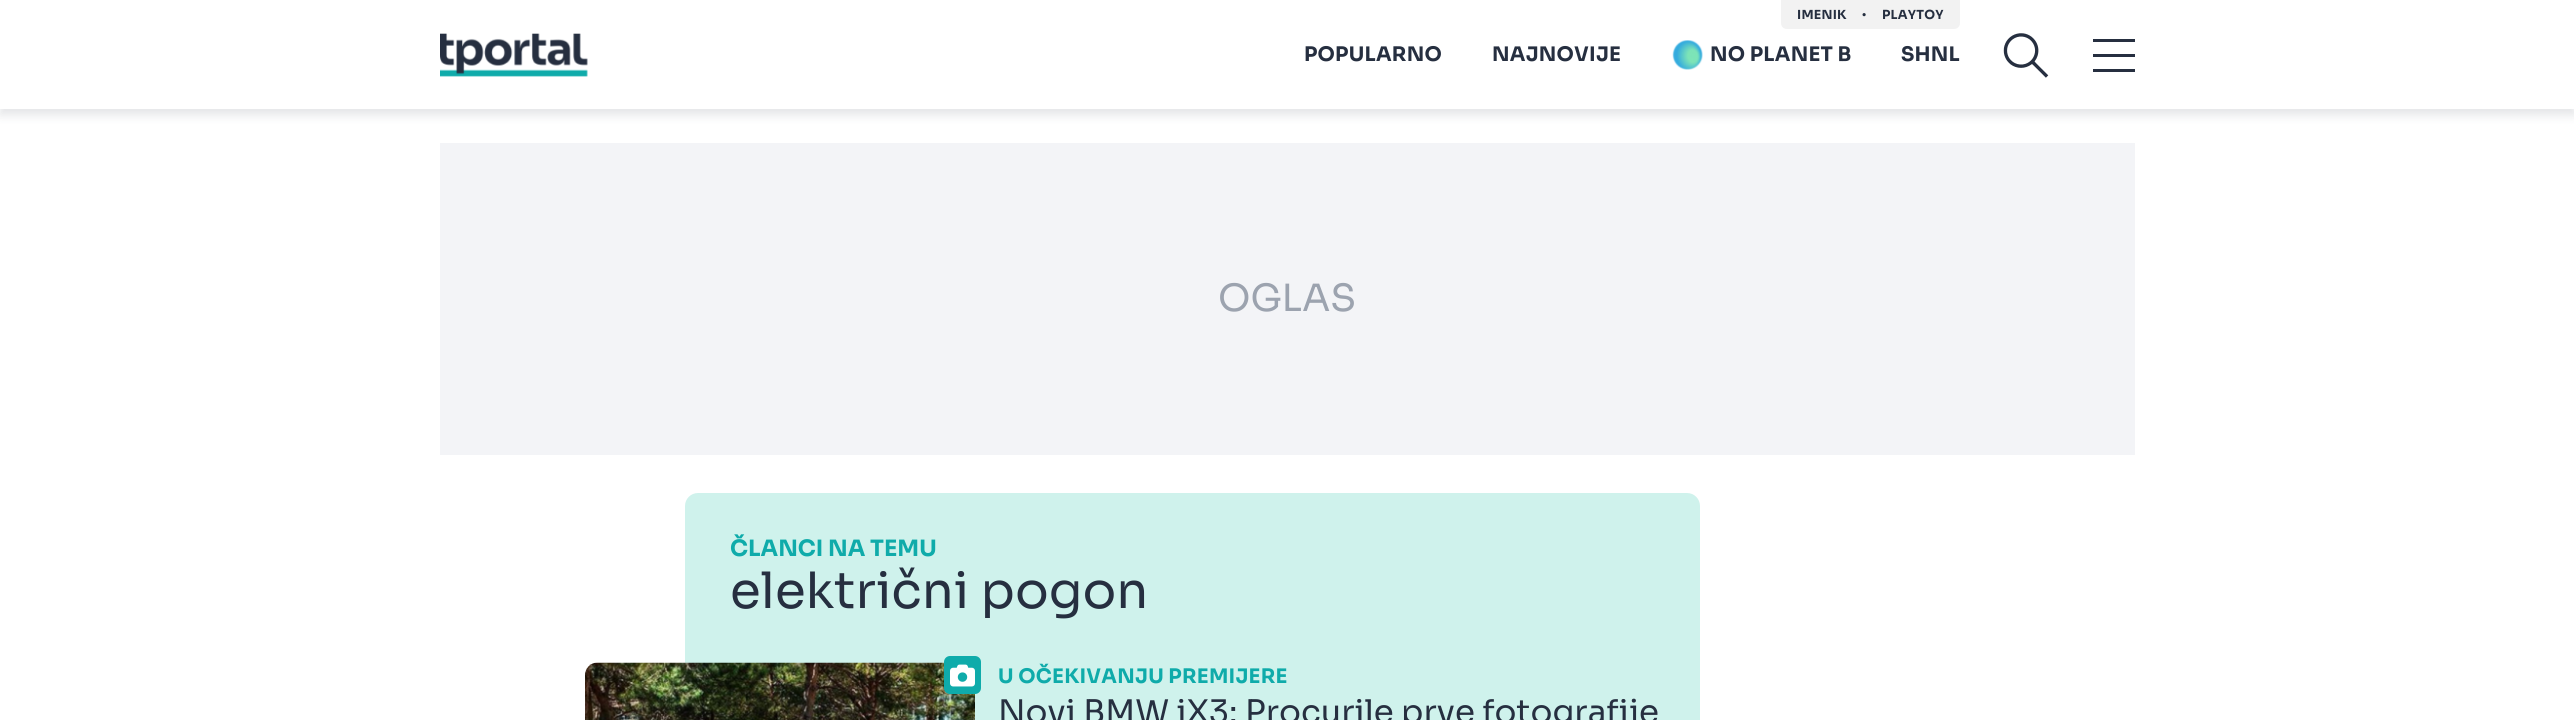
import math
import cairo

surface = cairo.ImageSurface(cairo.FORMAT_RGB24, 2574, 720)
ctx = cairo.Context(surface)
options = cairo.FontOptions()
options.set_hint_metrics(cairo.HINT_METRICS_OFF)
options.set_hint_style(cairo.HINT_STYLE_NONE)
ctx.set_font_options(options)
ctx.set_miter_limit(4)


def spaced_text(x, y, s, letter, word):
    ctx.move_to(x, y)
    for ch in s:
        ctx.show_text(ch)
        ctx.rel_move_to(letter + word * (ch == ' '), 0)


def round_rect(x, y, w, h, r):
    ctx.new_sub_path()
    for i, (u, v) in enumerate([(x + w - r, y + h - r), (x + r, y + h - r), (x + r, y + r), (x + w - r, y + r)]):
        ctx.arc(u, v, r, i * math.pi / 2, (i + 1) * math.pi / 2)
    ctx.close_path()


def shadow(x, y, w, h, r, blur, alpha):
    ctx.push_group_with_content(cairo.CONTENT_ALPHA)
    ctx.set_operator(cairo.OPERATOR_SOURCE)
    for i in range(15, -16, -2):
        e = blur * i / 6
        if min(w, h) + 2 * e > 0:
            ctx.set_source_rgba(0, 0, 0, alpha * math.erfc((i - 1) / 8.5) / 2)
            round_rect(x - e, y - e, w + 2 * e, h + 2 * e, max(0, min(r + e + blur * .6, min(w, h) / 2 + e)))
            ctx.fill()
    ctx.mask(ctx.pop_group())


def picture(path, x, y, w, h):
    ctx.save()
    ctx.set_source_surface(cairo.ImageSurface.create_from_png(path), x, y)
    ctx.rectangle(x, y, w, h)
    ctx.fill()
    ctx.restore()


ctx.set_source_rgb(1, 1, 1)
ctx.paint()
ctx.set_source_rgb(0.149, 0.184, 0.251)
shadow(0, 6, 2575, 109, 0, 5, 0.13)
ctx.set_source_rgb(1, 1, 1)
ctx.rectangle(0, 0, 2574, 109)
ctx.fill()
picture("img1.png", 440, 33, 148, 44)
ctx.set_source_rgb(0.949, 0.949, 0.949)
ctx.new_path()
ctx.move_to(1781, 0)
ctx.line_to(1960, 0)
ctx.line_to(1960, 23)
ctx.curve_to(1960, 26.5, 1957.5, 29, 1954, 29)
ctx.line_to(1787, 29)
ctx.curve_to(1783.5, 29, 1781, 26.5, 1781, 23)
ctx.close_path()
ctx.fill()
ctx.select_font_face("Sora", cairo.FONT_SLANT_NORMAL, cairo.FONT_WEIGHT_BOLD)
ctx.set_font_size(12.5)
ctx.set_source_rgb(0.149, 0.184, 0.251)
spaced_text(1797, 19, "IMENIK", 0.25, 0)
picture("img2.png", 1862, 13, 4, 4)
spaced_text(1882, 19, "PLAYTOY", 0.25, 0)
ctx.set_font_size(20)
spaced_text(1304, 61, "POPULARNO", 0.25, 0)
spaced_text(1492, 61, "NAJNOVIJE", 0.25, 0)
picture("img3.png", 1672, 40, 31, 30)
spaced_text(1710, 61, "NO PLANET B", 0.25, 0)
spaced_text(1901, 61, "SHNL", 0.25, 0)
picture("img4.png", 2003, 33, 46, 45)
ctx.rectangle(2093, 39, 42, 3)
ctx.fill()
ctx.rectangle(2093, 54, 42, 3)
ctx.fill()
ctx.rectangle(2093, 69, 42, 3)
ctx.fill()
ctx.set_source_rgb(0.953, 0.957, 0.965)
ctx.rectangle(440, 143, 1695, 312)
ctx.fill()
ctx.select_font_face("Sora")
ctx.set_font_size(37.5)
ctx.set_source_rgb(0.612, 0.639, 0.686)
ctx.move_to(1218, 311)
ctx.show_text("OGLAS")
ctx.set_source_rgb(0.812, 0.949, 0.925)
round_rect(685, 493, 1015, 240, 13)
ctx.fill()
ctx.select_font_face("Sora", cairo.FONT_SLANT_NORMAL, cairo.FONT_WEIGHT_BOLD)
ctx.set_font_size(22.5)
ctx.set_source_rgb(0.059, 0.671, 0.667)
ctx.move_to(730, 556)
ctx.show_text("ČLANCI NA TEMU")
ctx.select_font_face("Sora")
ctx.set_font_size(50)
ctx.set_source_rgb(0.149, 0.184, 0.251)
ctx.move_to(730, 608)
ctx.show_text("električni pogon")
picture("img6.png", 585, 662, 390, 58)
ctx.set_source_rgb(0.059, 0.671, 0.667)
round_rect(944, 656, 37, 38, 6)
ctx.fill()
picture("img5.png", 950, 664, 25, 23)
ctx.select_font_face("Sora", cairo.FONT_SLANT_NORMAL, cairo.FONT_WEIGHT_BOLD)
ctx.set_font_size(20)
spaced_text(998, 683, "U OČEKIVANJU PREMIJERE", 0.25, 0)
ctx.select_font_face("Sora")
ctx.set_font_size(32.5)
ctx.set_source_rgb(0.149, 0.184, 0.251)
ctx.move_to(998, 723)
ctx.show_text("Novi BMW iX3: Procurile prve fotografije")
surface.write_to_png("page.png")
